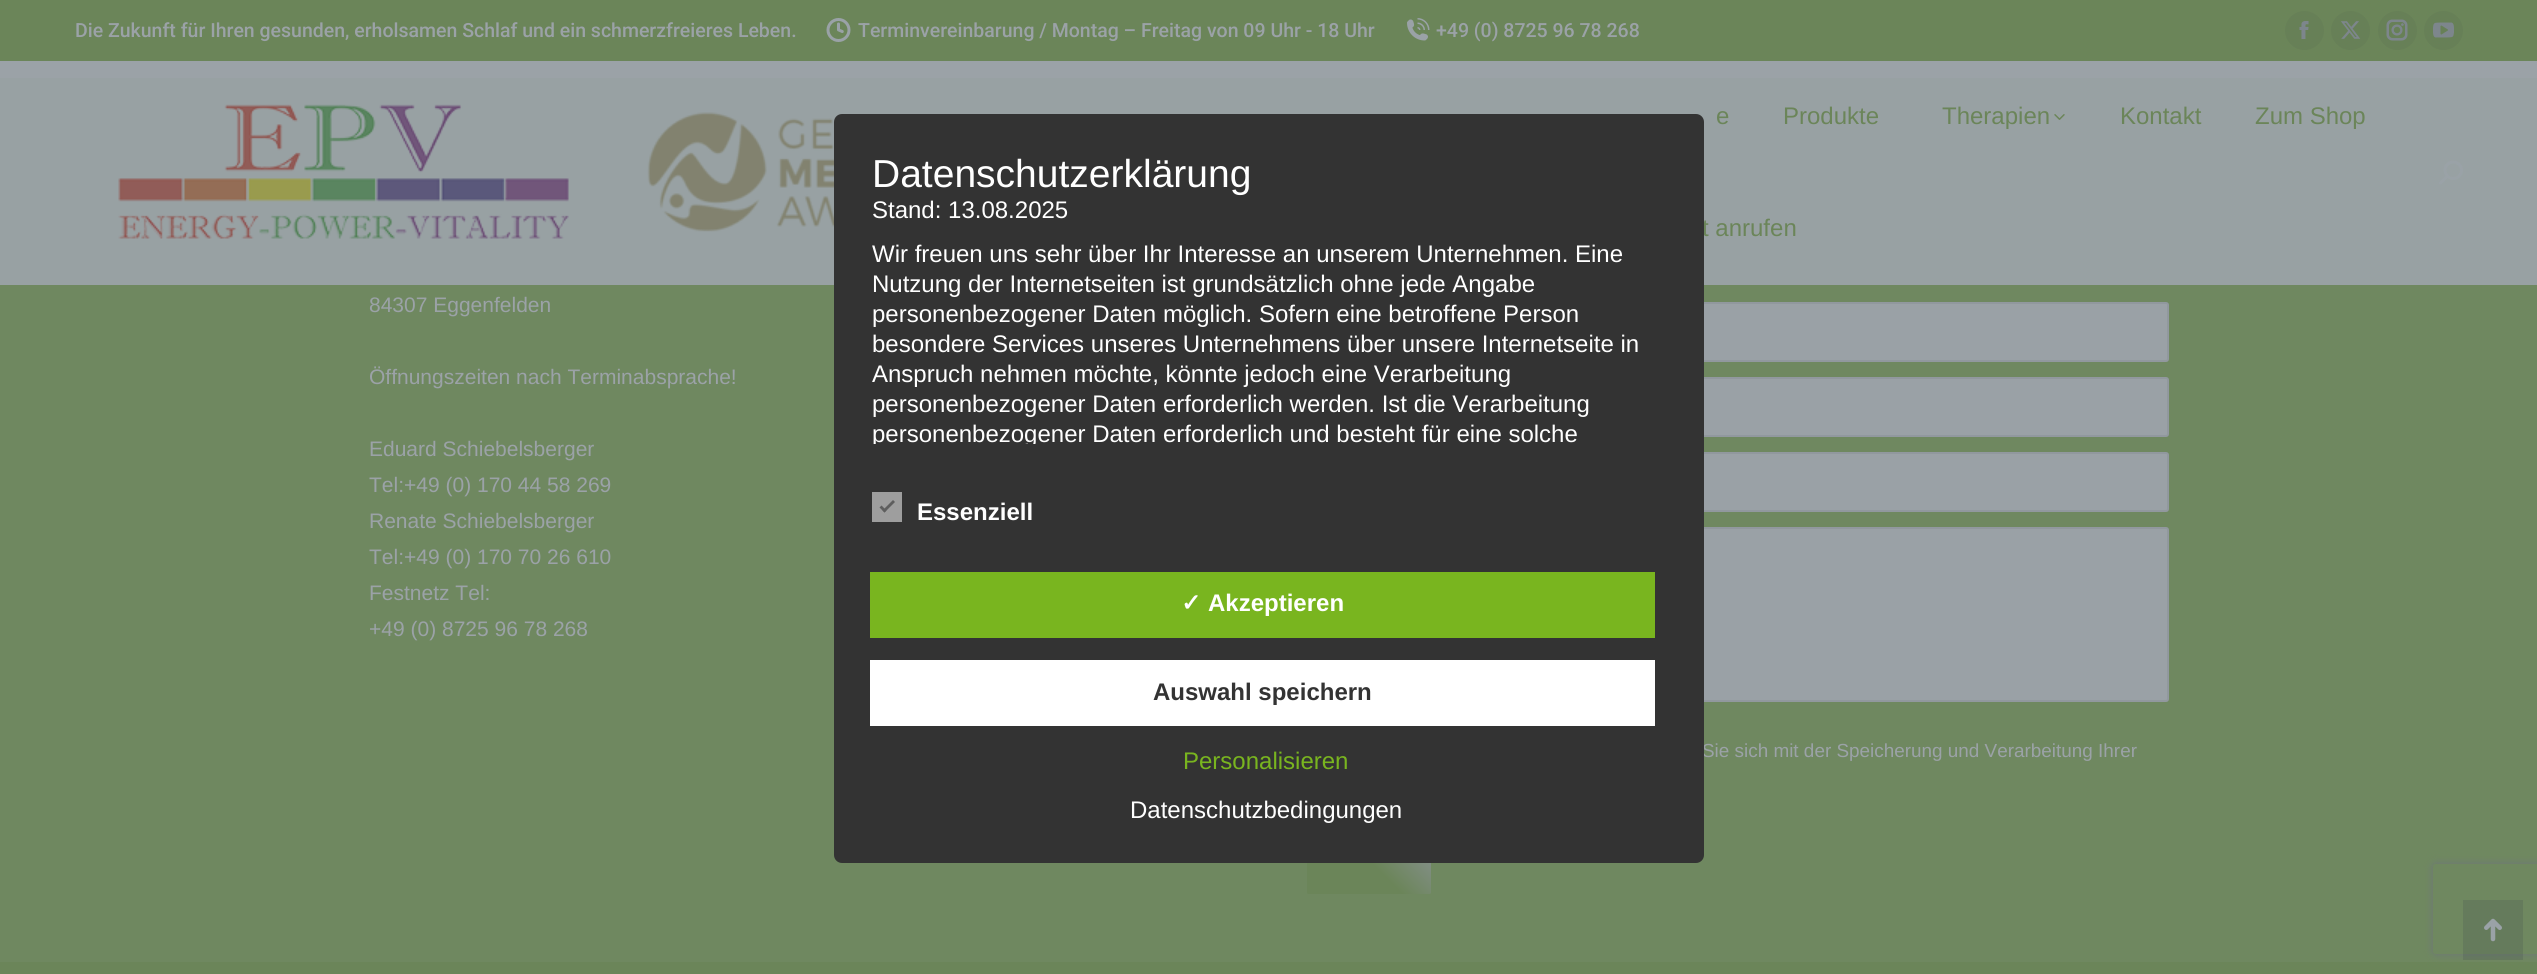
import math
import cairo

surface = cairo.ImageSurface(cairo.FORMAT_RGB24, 2537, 974)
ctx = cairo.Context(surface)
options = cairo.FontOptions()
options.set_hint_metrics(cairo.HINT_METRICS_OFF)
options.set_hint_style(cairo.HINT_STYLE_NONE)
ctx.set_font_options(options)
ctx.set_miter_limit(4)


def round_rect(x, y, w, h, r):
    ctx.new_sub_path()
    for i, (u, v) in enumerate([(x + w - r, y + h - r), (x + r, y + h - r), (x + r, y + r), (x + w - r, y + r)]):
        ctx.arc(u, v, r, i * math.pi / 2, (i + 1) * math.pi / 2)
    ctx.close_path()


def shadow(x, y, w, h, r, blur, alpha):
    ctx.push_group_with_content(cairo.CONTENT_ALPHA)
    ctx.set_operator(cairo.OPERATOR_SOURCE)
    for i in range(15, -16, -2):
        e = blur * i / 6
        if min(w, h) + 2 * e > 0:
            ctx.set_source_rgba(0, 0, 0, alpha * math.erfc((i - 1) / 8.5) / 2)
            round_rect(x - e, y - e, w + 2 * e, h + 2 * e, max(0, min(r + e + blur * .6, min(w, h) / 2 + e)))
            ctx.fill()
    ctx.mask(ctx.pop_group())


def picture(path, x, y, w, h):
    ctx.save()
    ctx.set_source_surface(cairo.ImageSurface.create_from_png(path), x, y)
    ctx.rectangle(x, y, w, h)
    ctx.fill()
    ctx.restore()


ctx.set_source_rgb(0.608, 0.635, 0.655)
ctx.paint()
ctx.set_source_rgb(0.42, 0.522, 0.349)
ctx.rectangle(0, 0, 2537, 61)
ctx.fill()
ctx.select_font_face("Roboto Medium")
ctx.set_font_size(19.5)
ctx.set_source_rgb(0.608, 0.635, 0.655)
ctx.move_to(75, 37)
ctx.show_text("Die Zukunft für Ihren gesunden, erholsamen Schlaf und ein schmerzfreieres Leben.")
picture("img1.png", 826, 18, 25, 24)
ctx.move_to(858, 37)
ctx.show_text("Terminvereinbarung / Montag – Freitag von 09 Uhr - 18 Uhr")
picture("img2.png", 1407, 18, 23, 23)
ctx.move_to(1436, 37)
ctx.show_text("+49 (0) 8725 96 78 268")
ctx.set_source_rgb(0.404, 0.502, 0.341)
ctx.new_path()
ctx.arc(2304.5, 30.5, 19.5, 0, 2 * math.pi)
ctx.fill()
picture("img3.png", 2299, 21, 10, 18)
ctx.arc(2350.5, 30.5, 19.5, 0, 2 * math.pi)
ctx.fill()
picture("img4.png", 2341, 21, 20, 18)
ctx.arc(2397.5, 30.5, 19.5, 0, 2 * math.pi)
ctx.fill()
picture("img5.png", 2386, 19, 22, 22)
ctx.arc(2443.5, 30.5, 19.5, 0, 2 * math.pi)
ctx.fill()
picture("img6.png", 2433, 22, 21, 16)
ctx.set_source_rgb(0.596, 0.631, 0.639)
ctx.rectangle(0, 78, 2537, 207)
ctx.fill()
picture("img7.png", 118, 104, 716, 135)
ctx.select_font_face("Liberation Sans")
ctx.set_font_size(24)
ctx.set_source_rgb(0.42, 0.522, 0.349)
ctx.move_to(1716, 124)
ctx.show_text("e")
ctx.move_to(1783, 124)
ctx.show_text("Produkte")
ctx.move_to(1942, 124)
ctx.show_text("Therapien")
picture("img8.png", 2054, 114, 11, 6)
ctx.move_to(2120, 124)
ctx.show_text("Kontakt")
ctx.move_to(2255, 124)
ctx.show_text("Zum Shop")
ctx.move_to(1702, 236)
ctx.show_text("t anrufen")
picture("img9.png", 2439, 160, 24, 25)
ctx.set_source_rgb(0.435, 0.533, 0.376)
ctx.rectangle(0, 285, 2537, 677)
ctx.fill()
ctx.set_source_rgb(0.604, 0.631, 0.651)
round_rect(1307, 302, 862, 60, 3)
ctx.fill()
round_rect(1308, 303, 860, 58, 2)
ctx.set_source_rgba(0.318, 0.349, 0.365, 0.11)
ctx.stroke()
ctx.set_source_rgb(0.604, 0.631, 0.651)
round_rect(1307, 377, 862, 60, 3)
ctx.fill()
round_rect(1308, 378, 860, 58, 2)
ctx.set_source_rgba(0.318, 0.349, 0.365, 0.11)
ctx.stroke()
ctx.set_source_rgb(0.604, 0.631, 0.651)
round_rect(1307, 452, 862, 60, 3)
ctx.fill()
round_rect(1308, 453, 860, 58, 2)
ctx.set_source_rgba(0.318, 0.349, 0.365, 0.11)
ctx.stroke()
ctx.set_source_rgb(0.604, 0.631, 0.651)
round_rect(1307, 527, 862, 175, 3)
ctx.fill()
round_rect(1308, 528, 860, 173, 2)
ctx.set_source_rgba(0.318, 0.349, 0.365, 0.11)
ctx.stroke()
ctx.set_font_size(18.9)
ctx.set_source_rgb(0.608, 0.635, 0.655)
ctx.move_to(1702, 757)
ctx.show_text("Sie sich mit der Speicherung und Verarbeitung Ihrer")
gradient = cairo.LinearGradient(1415, 818, 1323, 910)
gradient.add_color_stop_rgba(0, 0.545, 0.573, 0.592, 1)
gradient.add_color_stop_rgba(0.48, 0.42, 0.522, 0.349, 1)
ctx.set_source(gradient)
round_rect(1307, 834, 124, 60, 1.5)
ctx.fill()
ctx.set_source_rgb(0.2, 0.2, 0.2)
round_rect(834, 114, 870, 749, 8)
ctx.fill()
ctx.set_font_size(39)
ctx.set_source_rgb(1, 1, 1)
ctx.move_to(872, 187)
ctx.show_text("Datenschutzerklärung")
ctx.set_font_size(24)
ctx.move_to(872, 218)
ctx.show_text("Stand: 13.08.2025")
ctx.move_to(872, 262)
ctx.show_text("Wir freuen uns sehr über Ihr Interesse an unserem Unternehmen. Eine")
ctx.move_to(872, 292)
ctx.show_text("Nutzung der Internetseiten ist grundsätzlich ohne jede Angabe")
ctx.move_to(872, 322)
ctx.show_text("personenbezogener Daten möglich. Sofern eine betroffene Person")
ctx.move_to(872, 352)
ctx.show_text("besondere Services unseres Unternehmens über unsere Internetseite in")
ctx.move_to(872, 382)
ctx.show_text("Anspruch nehmen möchte, könnte jedoch eine Verarbeitung")
ctx.move_to(872, 412)
ctx.show_text("personenbezogener Daten erforderlich werden. Ist die Verarbeitung")
ctx.save()
ctx.rectangle(872, 152, 810, 292)
ctx.clip()
ctx.move_to(872, 442)
ctx.show_text("personenbezogener Daten erforderlich und besteht für eine solche")
ctx.restore()
ctx.set_source_rgb(0.62, 0.62, 0.62)
ctx.rectangle(872, 492, 30, 30)
ctx.fill()
ctx.set_source_rgb(0.369, 0.369, 0.369)
ctx.new_path()
ctx.move_to(893, 500)
ctx.line_to(895, 502)
ctx.line_to(884.5, 512.5)
ctx.line_to(882.5, 510.5)
ctx.close_path()
ctx.fill()
ctx.new_path()
ctx.move_to(881.5, 505.5)
ctx.line_to(886.5, 510.5)
ctx.line_to(884.5, 512.5)
ctx.line_to(879.5, 507.5)
ctx.close_path()
ctx.fill()
ctx.select_font_face("Liberation Sans", cairo.FONT_SLANT_NORMAL, cairo.FONT_WEIGHT_BOLD)
ctx.set_source_rgb(1, 1, 1)
ctx.move_to(917, 520)
ctx.show_text("Essenziell")
ctx.set_source_rgb(0.475, 0.71, 0.122)
ctx.rectangle(870, 572, 785, 66)
ctx.fill()
ctx.select_font_face("DejaVu Sans", cairo.FONT_SLANT_NORMAL, cairo.FONT_WEIGHT_BOLD)
ctx.set_source_rgb(1, 1, 1)
ctx.move_to(1181, 611)
ctx.show_text("✓")
ctx.select_font_face("Liberation Sans", cairo.FONT_SLANT_NORMAL, cairo.FONT_WEIGHT_BOLD)
ctx.move_to(1208, 611)
ctx.show_text("Akzeptieren")
ctx.rectangle(870, 660, 785, 66)
ctx.fill()
ctx.set_source_rgb(0.2, 0.2, 0.2)
ctx.move_to(1153, 700)
ctx.show_text("Auswahl speichern")
ctx.select_font_face("Liberation Sans")
ctx.set_source_rgb(0.475, 0.71, 0.122)
ctx.move_to(1183, 769)
ctx.show_text("Personalisieren")
ctx.set_source_rgb(1, 1, 1)
ctx.move_to(1130, 818)
ctx.show_text("Datenschutzbedingungen")
ctx.set_font_size(21)
ctx.set_source_rgb(0.608, 0.635, 0.655)
ctx.move_to(369, 312)
ctx.show_text("84307 Eggenfelden")
ctx.move_to(369, 384)
ctx.show_text("Öffnungszeiten nach Terminabsprache!")
ctx.move_to(369, 456)
ctx.show_text("Eduard Schiebelsberger")
ctx.move_to(369, 492)
ctx.show_text("Tel:+49 (0) 170 44 58 269")
ctx.move_to(369, 528)
ctx.show_text("Renate Schiebelsberger")
ctx.move_to(369, 564)
ctx.show_text("Tel:+49 (0) 170 70 26 610")
ctx.move_to(369, 600)
ctx.show_text("Festnetz Tel:")
ctx.move_to(369, 636)
ctx.show_text("+49 (0) 8725 96 78 268")
ctx.save()
ctx.set_fill_rule(cairo.FILL_RULE_EVEN_ODD)
ctx.new_path()
ctx.move_to(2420, 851)
ctx.line_to(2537, 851)
ctx.line_to(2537, 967)
ctx.line_to(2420, 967)
ctx.close_path()
ctx.move_to(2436, 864)
ctx.line_to(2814, 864)
ctx.curve_to(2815.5, 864, 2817, 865.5, 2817, 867)
ctx.line_to(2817, 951)
ctx.curve_to(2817, 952.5, 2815.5, 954, 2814, 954)
ctx.line_to(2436, 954)
ctx.curve_to(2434.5, 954, 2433, 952.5, 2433, 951)
ctx.line_to(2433, 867)
ctx.curve_to(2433, 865.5, 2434.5, 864, 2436, 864)
ctx.close_path()
ctx.clip()
ctx.set_source_rgb(0.427, 0.455, 0.475)
shadow(2433, 864, 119, 90, 3, 4, 1)
ctx.restore()
ctx.set_source_rgb(0.42, 0.522, 0.349)
ctx.rectangle(0, 962, 2537, 12)
ctx.fill()
ctx.set_source_rgba(0.247, 0.275, 0.294, 0.2)
ctx.rectangle(2463, 900, 60, 60)
ctx.fill()
picture("img10.png", 2484, 918, 18, 24)
surface.write_to_png("page.png")
